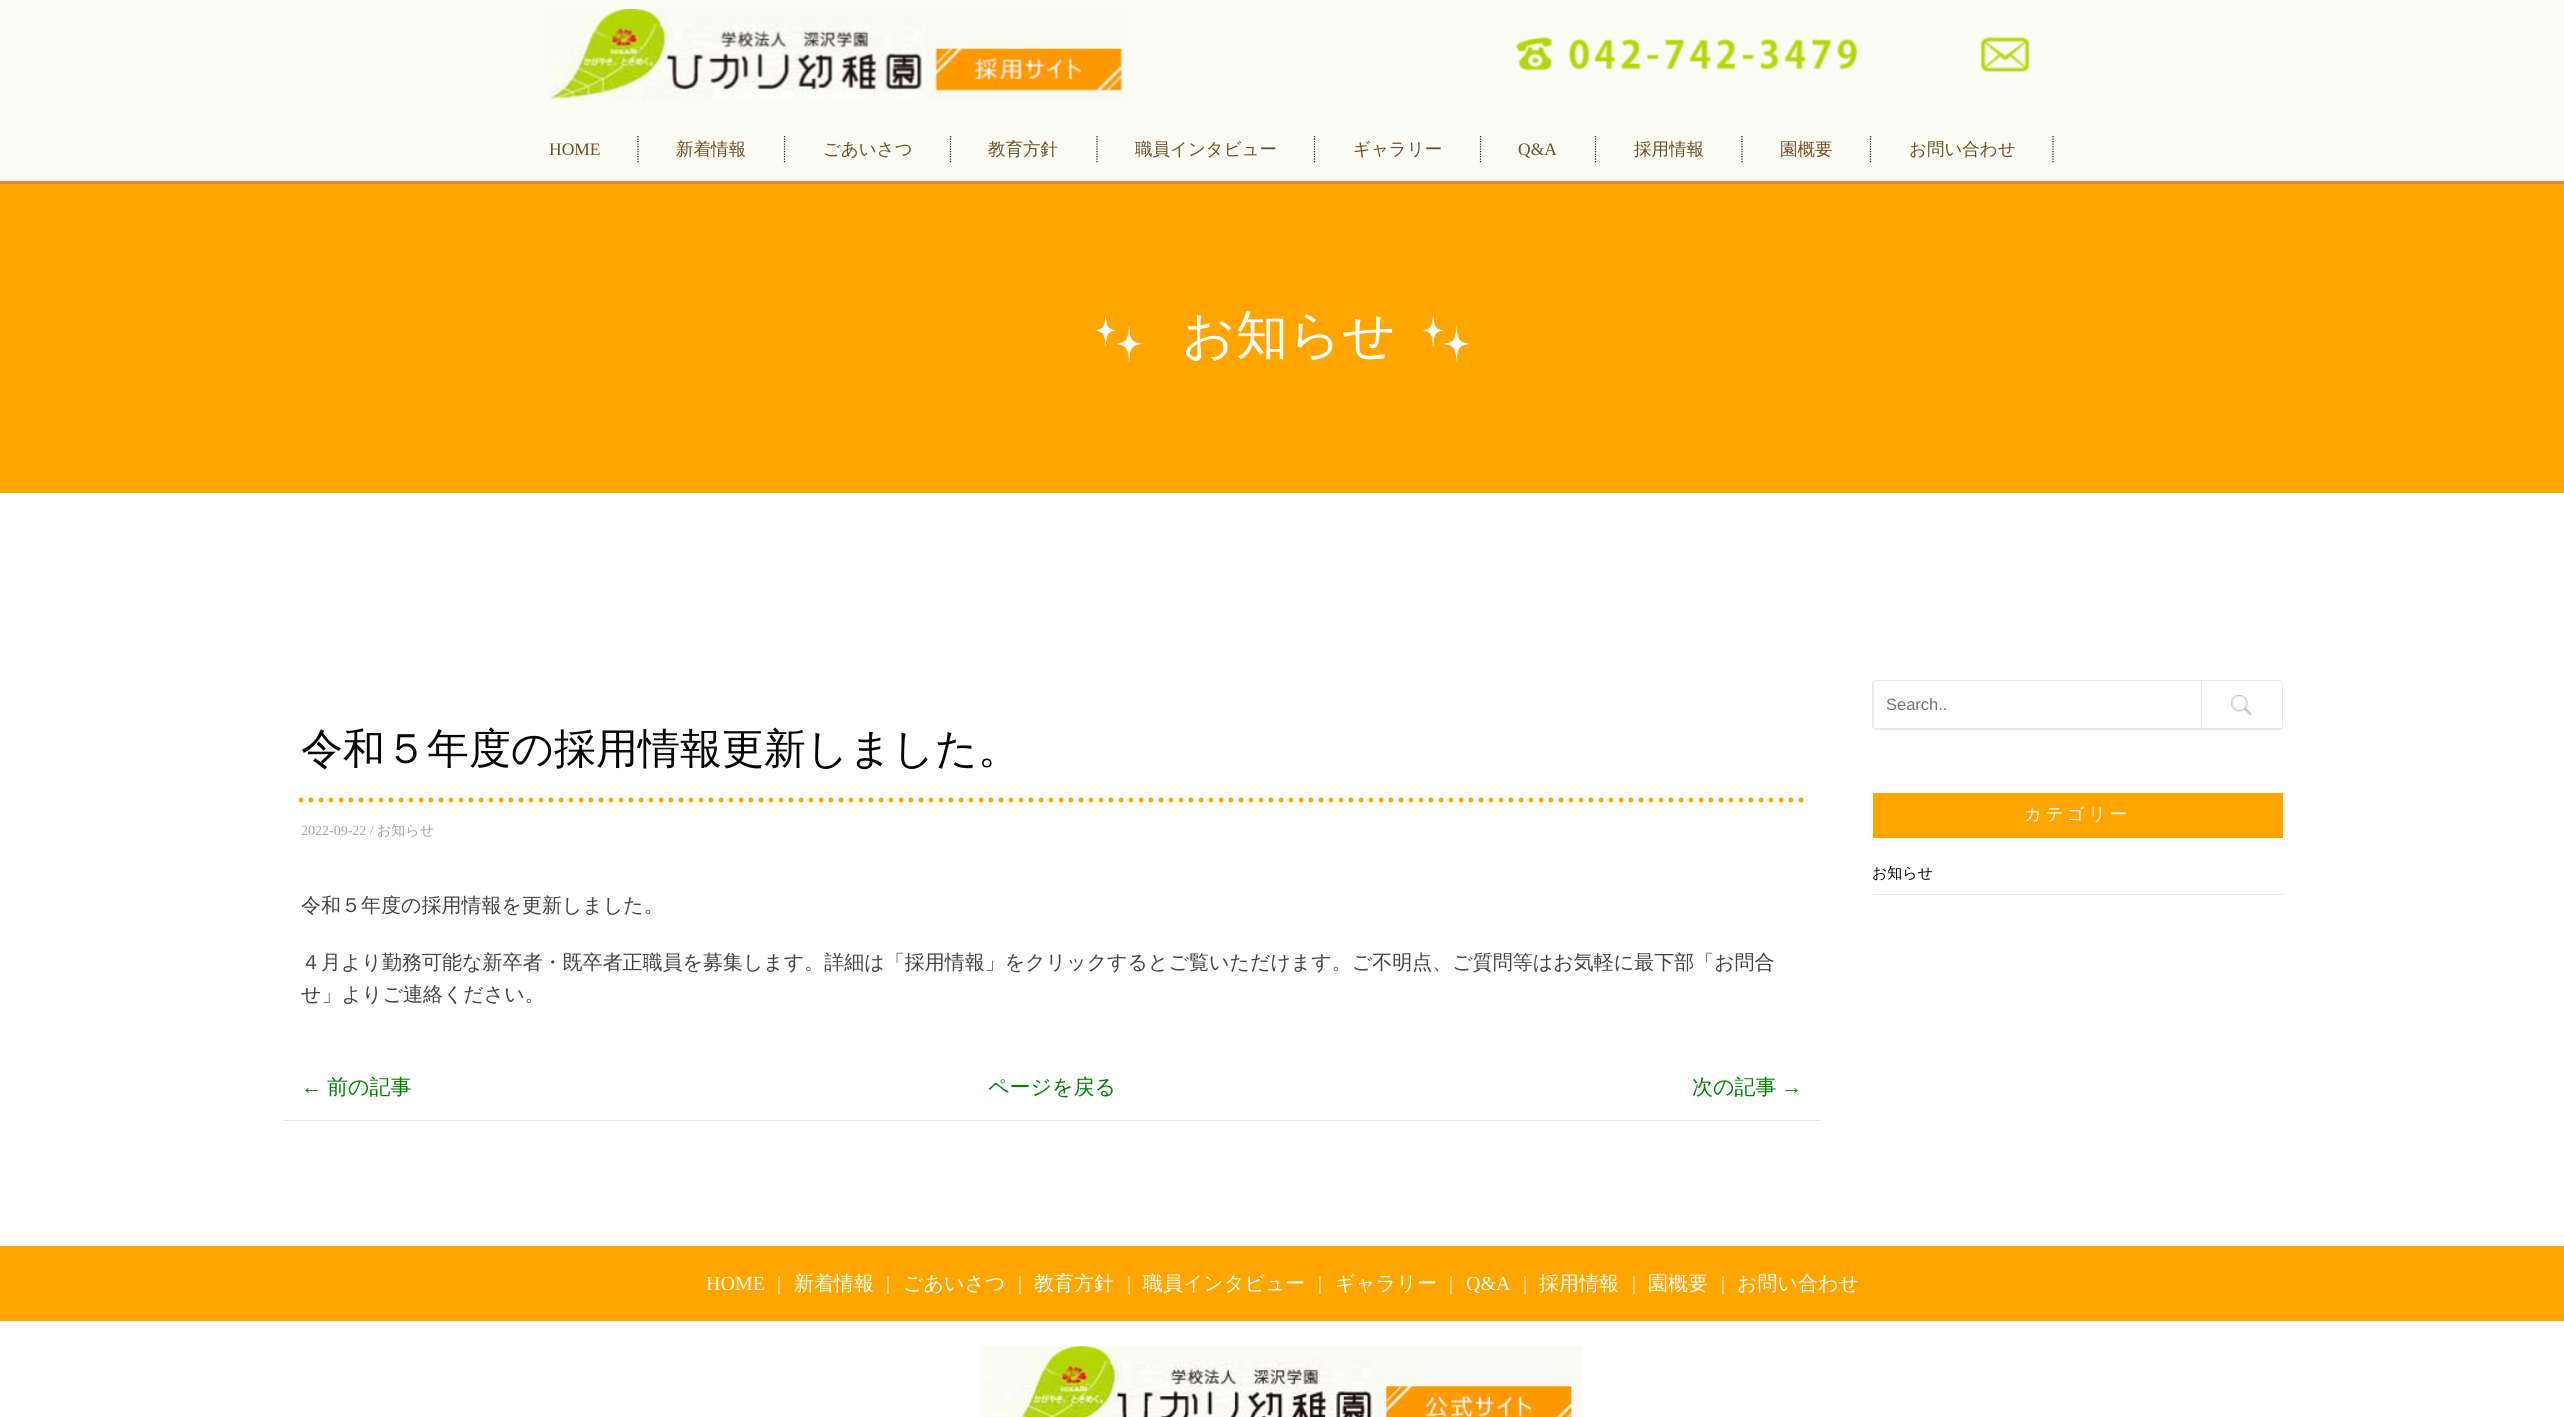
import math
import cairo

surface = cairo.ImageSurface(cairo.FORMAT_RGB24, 2564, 1417)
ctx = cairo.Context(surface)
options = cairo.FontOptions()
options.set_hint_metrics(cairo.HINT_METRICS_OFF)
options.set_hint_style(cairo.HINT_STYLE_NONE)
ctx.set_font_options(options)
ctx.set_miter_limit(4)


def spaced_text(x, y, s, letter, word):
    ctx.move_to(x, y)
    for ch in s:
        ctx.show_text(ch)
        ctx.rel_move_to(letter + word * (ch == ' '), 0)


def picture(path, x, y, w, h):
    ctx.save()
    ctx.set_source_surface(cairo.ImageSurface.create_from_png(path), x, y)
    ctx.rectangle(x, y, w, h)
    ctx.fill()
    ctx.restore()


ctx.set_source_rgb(1, 1, 1)
ctx.paint()
ctx.set_source_rgb(0.984, 0.988, 0.957)
ctx.rectangle(0, 0, 2564, 181)
ctx.fill()
ctx.set_source_rgb(0.925, 0.502, 0.208)
ctx.rectangle(0, 181, 2564, 3)
ctx.fill()
picture("img1.png", 549, 9, 574, 90)
picture("img2.png", 1515, 36, 343, 35)
picture("img3.png", 1980, 36, 50, 36)
ctx.new_path()
ctx.move_to(638, 136)
ctx.line_to(638, 162.5)
ctx.set_source_rgb(0.122, 0.122, 0.118)
ctx.set_line_width(1.2)
ctx.set_dash([1.25, 1.25])
ctx.stroke()
ctx.select_font_face("Liberation Serif")
ctx.set_font_size(17.5)
ctx.set_source_rgb(0.435, 0.298, 0.165)
ctx.move_to(549, 155)
ctx.show_text("HOME")
ctx.new_path()
ctx.move_to(784.5, 136)
ctx.line_to(784.5, 162.5)
ctx.set_source_rgb(0.122, 0.122, 0.118)
ctx.stroke()
ctx.select_font_face("WenQuanYi Zen Hei Medium")
ctx.set_source_rgb(0.435, 0.298, 0.165)
ctx.move_to(676, 155)
ctx.show_text("新着情報")
ctx.new_path()
ctx.move_to(950.5, 136)
ctx.line_to(950.5, 162.5)
ctx.set_source_rgb(0.122, 0.122, 0.118)
ctx.stroke()
ctx.set_source_rgb(0.435, 0.298, 0.165)
ctx.move_to(823, 155)
ctx.show_text("ごあいさつ")
ctx.new_path()
ctx.move_to(1097, 136)
ctx.line_to(1097, 162.5)
ctx.set_source_rgb(0.122, 0.122, 0.118)
ctx.stroke()
ctx.set_source_rgb(0.435, 0.298, 0.165)
ctx.move_to(988, 155)
ctx.show_text("教育方針")
ctx.new_path()
ctx.move_to(1314.5, 136)
ctx.line_to(1314.5, 162.5)
ctx.set_source_rgb(0.122, 0.122, 0.118)
ctx.stroke()
ctx.set_source_rgb(0.435, 0.298, 0.165)
ctx.move_to(1135, 155)
ctx.show_text("職員インタビュー")
ctx.new_path()
ctx.move_to(1480.5, 136)
ctx.line_to(1480.5, 162.5)
ctx.set_source_rgb(0.122, 0.122, 0.118)
ctx.stroke()
ctx.set_source_rgb(0.435, 0.298, 0.165)
ctx.move_to(1353, 155)
ctx.show_text("ギャラリー")
ctx.new_path()
ctx.move_to(1595.5, 136)
ctx.line_to(1595.5, 162.5)
ctx.set_source_rgb(0.122, 0.122, 0.118)
ctx.stroke()
ctx.select_font_face("Liberation Serif")
ctx.set_source_rgb(0.435, 0.298, 0.165)
ctx.move_to(1518, 155)
ctx.show_text("Q&A")
ctx.new_path()
ctx.move_to(1742, 136)
ctx.line_to(1742, 162.5)
ctx.set_source_rgb(0.122, 0.122, 0.118)
ctx.stroke()
ctx.select_font_face("WenQuanYi Zen Hei Medium")
ctx.set_source_rgb(0.435, 0.298, 0.165)
ctx.move_to(1634, 155)
ctx.show_text("採用情報")
ctx.new_path()
ctx.move_to(1870.5, 136)
ctx.line_to(1870.5, 162.5)
ctx.set_source_rgb(0.122, 0.122, 0.118)
ctx.stroke()
ctx.set_source_rgb(0.435, 0.298, 0.165)
ctx.move_to(1780, 155)
ctx.show_text("園概要")
ctx.new_path()
ctx.move_to(2053, 136)
ctx.line_to(2053, 162.5)
ctx.set_source_rgb(0.122, 0.122, 0.118)
ctx.stroke()
ctx.set_source_rgb(0.435, 0.298, 0.165)
ctx.move_to(1909, 155)
ctx.show_text("お問い合わせ")
ctx.set_source_rgb(1, 0.647, 0)
ctx.rectangle(0, 184, 2564, 309)
ctx.fill()
picture("img4.png", 1095, 315, 48, 47)
ctx.set_font_size(52.5)
ctx.set_source_rgb(1, 1, 1)
ctx.move_to(1182, 353)
ctx.show_text("お知らせ")
picture("img5.png", 1422, 315, 48, 47)
ctx.set_source_rgb(0.914, 0.914, 0.914)
ctx.rectangle(283, 1120, 1538, 1)
ctx.fill()
ctx.new_path()
ctx.move_to(301, 800)
ctx.line_to(1802.5, 800)
ctx.set_source_rgb(1, 0.647, 0)
ctx.set_line_width(5)
ctx.set_line_cap(cairo.LINE_CAP_ROUND)
ctx.set_dash([0, 10])
ctx.stroke()
ctx.set_font_size(42)
ctx.set_source_rgb(0.024, 0.024, 0.024)
ctx.move_to(301, 763)
ctx.show_text("令和５年度の採用情報更新しました。")
ctx.select_font_face("Liberation Serif")
ctx.set_font_size(14)
ctx.set_source_rgb(0.643, 0.643, 0.639)
ctx.move_to(301, 835)
ctx.show_text("2022-09-22 /")
ctx.select_font_face("WenQuanYi Zen Hei Medium")
ctx.move_to(377, 835)
ctx.show_text("お知らせ")
ctx.set_font_size(20)
ctx.set_source_rgb(0.259, 0.259, 0.259)
ctx.move_to(301, 912)
ctx.show_text("令和５年度の採用情報を更新しました。")
ctx.move_to(301, 969)
ctx.show_text("４月より勤務可能な新卒者・既卒者正職員を募集します。詳細は「採用情報」をクリックするとご覧いただけます。ご不明点、ご質問等はお気軽に最下部「お問合")
ctx.move_to(301, 1001)
ctx.show_text("せ」よりご連絡ください。")
ctx.select_font_face("Liberation Serif")
ctx.set_font_size(21)
ctx.set_source_rgb(0, 0.502, 0)
ctx.move_to(301, 1094)
ctx.show_text("←")
ctx.select_font_face("WenQuanYi Zen Hei Medium")
ctx.move_to(327, 1094)
ctx.show_text("前の記事")
ctx.move_to(988, 1094)
ctx.show_text("ページを戻る")
ctx.move_to(1692, 1094)
ctx.show_text("次の記事")
ctx.select_font_face("Liberation Serif")
ctx.move_to(1781, 1094)
ctx.show_text("→")
ctx.set_source_rgb(0.914, 0.914, 0.914)
ctx.set_fill_rule(cairo.FILL_RULE_EVEN_ODD)
ctx.new_path()
ctx.move_to(1876, 680)
ctx.line_to(2201, 680)
ctx.line_to(2201, 730)
ctx.line_to(1876, 730)
ctx.curve_to(1874, 730, 1872, 728, 1872, 726)
ctx.line_to(1872, 684)
ctx.curve_to(1872, 682, 1874, 680, 1876, 680)
ctx.close_path()
ctx.move_to(1876, 681)
ctx.line_to(2201, 681)
ctx.line_to(2201, 728)
ctx.line_to(1876, 728)
ctx.curve_to(1875, 728, 1874, 727, 1874, 726)
ctx.line_to(1874, 684)
ctx.curve_to(1874, 682, 1875, 681, 1876, 681)
ctx.close_path()
ctx.fill()
ctx.select_font_face("Liberation Sans")
ctx.set_font_size(16.5)
ctx.set_source_rgb(0.459, 0.459, 0.459)
ctx.move_to(1886, 710)
ctx.show_text("Search..")
picture("img6.png", 2231, 695, 21, 20)
ctx.new_path()
ctx.move_to(2201.5, 680.5)
ctx.line_to(2279, 680.5)
ctx.curve_to(2281, 680.5, 2282.5, 682, 2282.5, 684)
ctx.line_to(2282.5, 726)
ctx.curve_to(2282.5, 728, 2281, 729.5, 2279, 729.5)
ctx.line_to(2201.5, 729.5)
ctx.close_path()
ctx.set_source_rgb(0.914, 0.914, 0.914)
ctx.set_line_width(1)
ctx.set_line_cap(cairo.LINE_CAP_BUTT)
ctx.set_dash([])
ctx.stroke()
ctx.rectangle(2201, 728, 80, 1)
ctx.fill()
ctx.set_source_rgb(1, 0.647, 0)
ctx.rectangle(1873, 793, 410, 45)
ctx.fill()
ctx.select_font_face("WenQuanYi Zen Hei Medium")
ctx.set_font_size(17.5)
ctx.set_source_rgb(1, 1, 1)
spaced_text(2024, 820, "カテゴリー", 3.5, 0)
ctx.set_source_rgb(0.914, 0.914, 0.914)
ctx.rectangle(1873, 894, 410, 1)
ctx.fill()
ctx.set_font_size(15)
ctx.set_source_rgb(0.024, 0.024, 0.024)
ctx.move_to(1872, 878)
ctx.show_text("お知らせ")
ctx.set_source_rgb(1, 0.647, 0)
ctx.rectangle(0, 1246, 2564, 75)
ctx.fill()
ctx.select_font_face("Liberation Serif")
ctx.set_font_size(20)
ctx.set_source_rgb(1, 1, 1)
ctx.move_to(706, 1290)
ctx.show_text("HOME")
ctx.move_to(777, 1290)
ctx.show_text("|")
ctx.select_font_face("WenQuanYi Zen Hei Medium")
ctx.move_to(794, 1290)
ctx.show_text("新着情報")
ctx.select_font_face("Liberation Serif")
ctx.move_to(886, 1290)
ctx.show_text("|")
ctx.select_font_face("WenQuanYi Zen Hei Medium")
ctx.move_to(903, 1290)
ctx.show_text("ごあいさつ")
ctx.select_font_face("Liberation Serif")
ctx.move_to(1018, 1290)
ctx.show_text("|")
ctx.select_font_face("WenQuanYi Zen Hei Medium")
ctx.move_to(1034, 1290)
ctx.show_text("教育方針")
ctx.select_font_face("Liberation Serif")
ctx.move_to(1127, 1290)
ctx.show_text("|")
ctx.select_font_face("WenQuanYi Zen Hei Medium")
ctx.move_to(1143, 1290)
ctx.show_text("職員インタビュー")
ctx.select_font_face("Liberation Serif")
ctx.move_to(1318, 1290)
ctx.show_text("|")
ctx.select_font_face("WenQuanYi Zen Hei Medium")
ctx.move_to(1335, 1290)
ctx.show_text("ギャラリー")
ctx.select_font_face("Liberation Serif")
ctx.move_to(1449, 1290)
ctx.show_text("|")
ctx.move_to(1466, 1290)
ctx.show_text("Q&A")
ctx.move_to(1523, 1290)
ctx.show_text("|")
ctx.select_font_face("WenQuanYi Zen Hei Medium")
ctx.move_to(1539, 1290)
ctx.show_text("採用情報")
ctx.select_font_face("Liberation Serif")
ctx.move_to(1632, 1290)
ctx.show_text("|")
ctx.select_font_face("WenQuanYi Zen Hei Medium")
ctx.move_to(1648, 1290)
ctx.show_text("園概要")
ctx.select_font_face("Liberation Serif")
ctx.move_to(1721, 1290)
ctx.show_text("|")
ctx.select_font_face("WenQuanYi Zen Hei Medium")
ctx.move_to(1737, 1290)
ctx.show_text("お問い合わせ")
picture("img7.png", 982, 1346, 601, 71)
surface.write_to_png("page.png")
